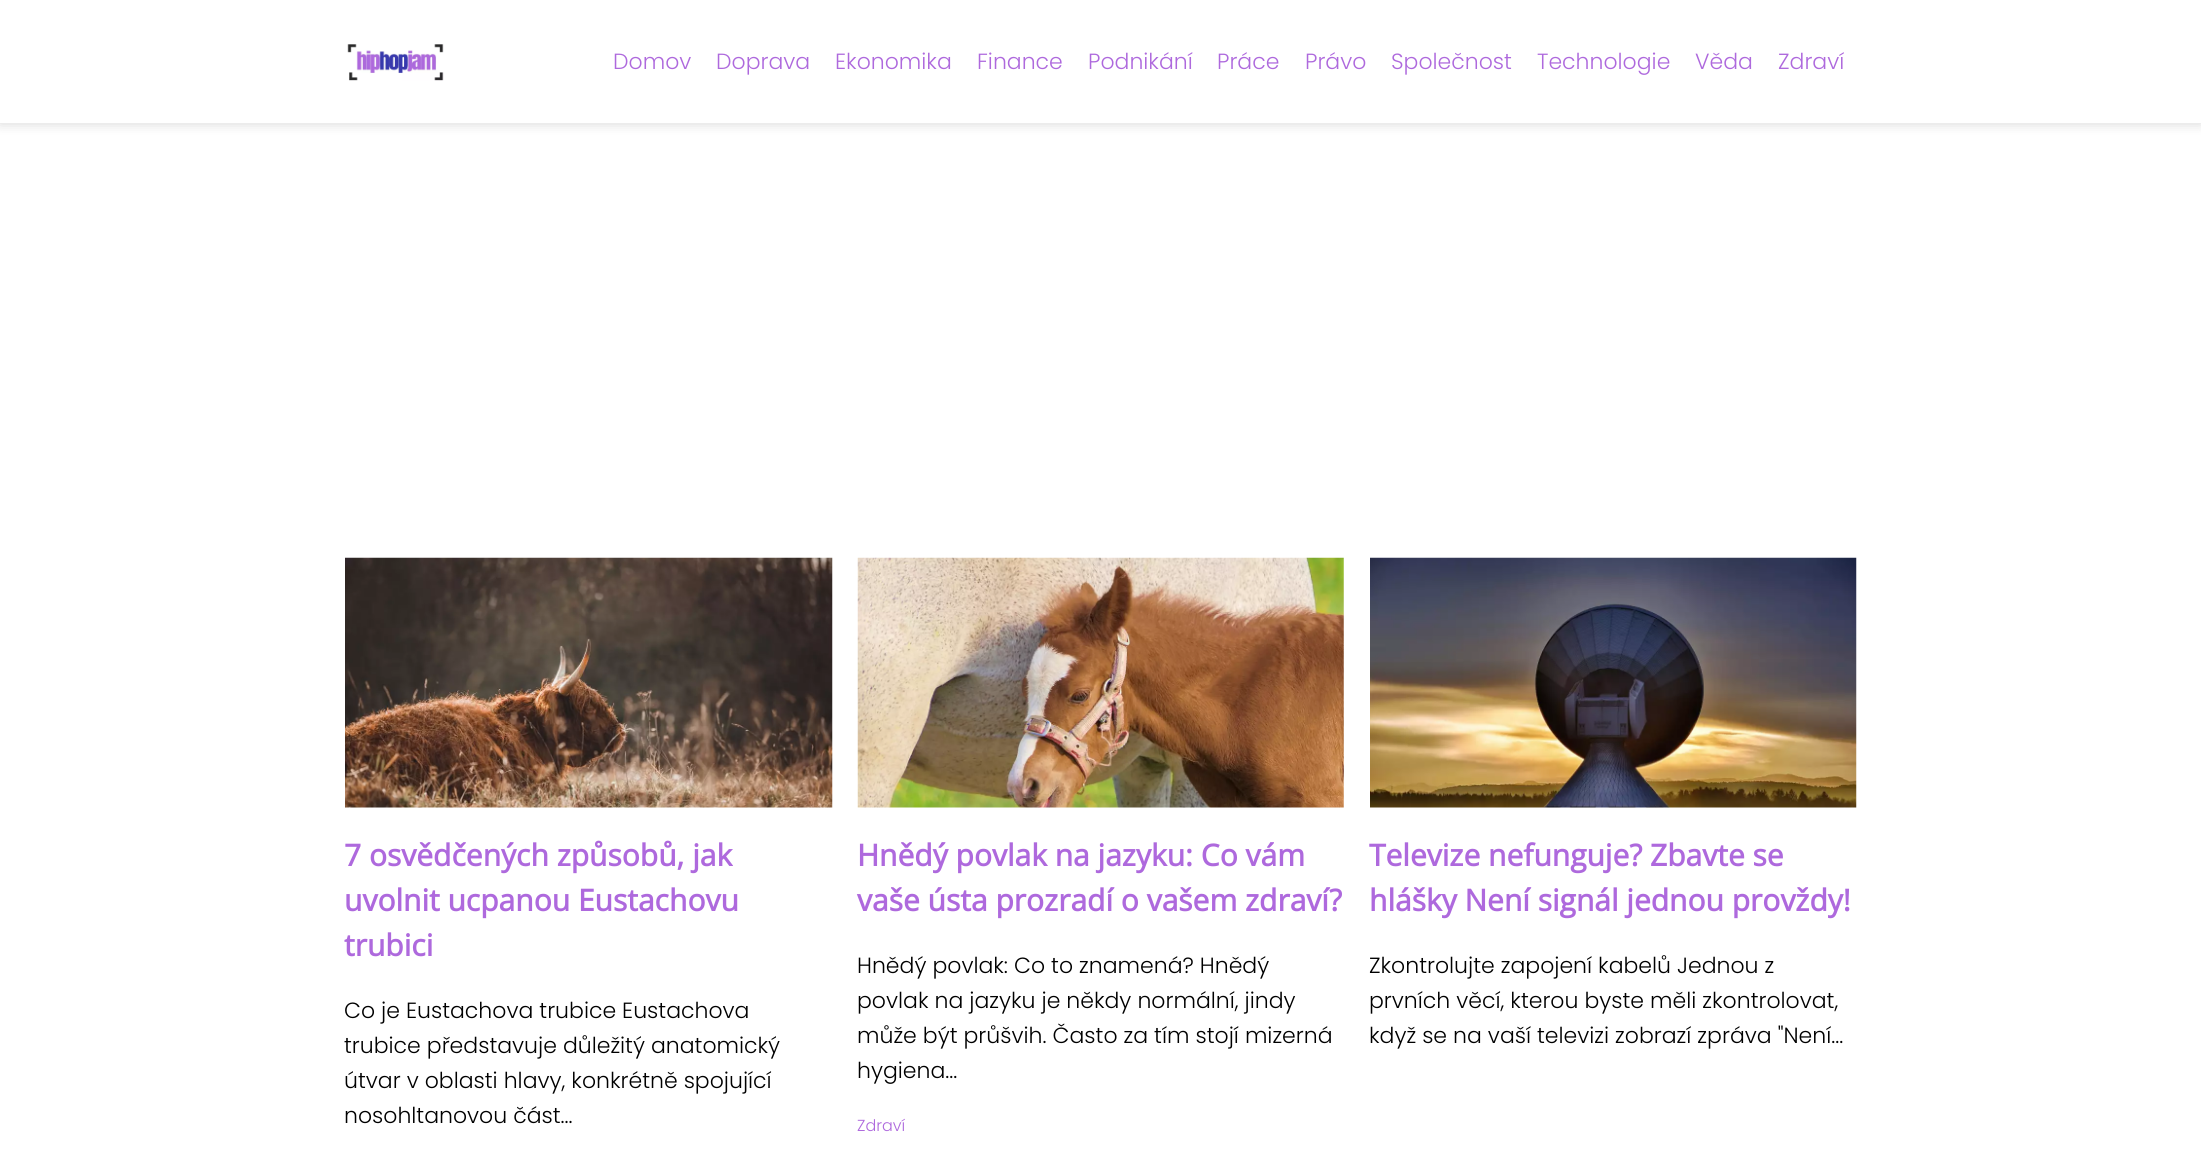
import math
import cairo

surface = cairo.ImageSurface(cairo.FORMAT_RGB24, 2201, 1162)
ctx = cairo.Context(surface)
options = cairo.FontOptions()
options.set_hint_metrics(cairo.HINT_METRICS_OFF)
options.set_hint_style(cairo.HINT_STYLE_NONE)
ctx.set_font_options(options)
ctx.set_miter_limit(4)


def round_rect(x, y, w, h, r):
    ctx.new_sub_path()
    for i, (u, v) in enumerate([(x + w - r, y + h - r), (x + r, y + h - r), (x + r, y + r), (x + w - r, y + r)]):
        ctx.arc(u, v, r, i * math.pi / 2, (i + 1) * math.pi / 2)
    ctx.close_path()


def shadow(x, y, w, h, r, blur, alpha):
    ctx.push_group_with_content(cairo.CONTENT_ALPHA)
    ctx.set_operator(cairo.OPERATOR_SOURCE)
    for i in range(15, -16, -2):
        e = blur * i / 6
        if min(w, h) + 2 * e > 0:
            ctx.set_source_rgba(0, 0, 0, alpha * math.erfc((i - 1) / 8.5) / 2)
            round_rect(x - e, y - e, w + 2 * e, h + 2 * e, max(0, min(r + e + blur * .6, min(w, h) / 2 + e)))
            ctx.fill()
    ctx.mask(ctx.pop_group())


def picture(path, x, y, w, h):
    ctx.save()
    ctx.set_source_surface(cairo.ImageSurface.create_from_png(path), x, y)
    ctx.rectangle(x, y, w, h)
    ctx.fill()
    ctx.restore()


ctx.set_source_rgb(1, 1, 1)
ctx.paint()
ctx.set_source_rgb(0, 0, 0)
shadow(0, 1, 2201, 123, 0, 6, 0.15)
ctx.set_source_rgb(1, 1, 1)
ctx.rectangle(0, 0, 2201, 123)
ctx.fill()
picture("img1.png", 347, 44, 97, 37)
ctx.select_font_face("Poppins Light")
ctx.set_font_size(22)
ctx.set_source_rgb(0.682, 0.412, 0.867)
ctx.move_to(613, 69)
ctx.show_text("Domov")
ctx.move_to(716, 69)
ctx.show_text("Doprava")
ctx.move_to(835, 69)
ctx.show_text("Ekonomika")
ctx.move_to(977, 69)
ctx.show_text("Finance")
ctx.move_to(1088, 69)
ctx.show_text("Podnikání")
ctx.move_to(1217, 69)
ctx.show_text("Práce")
ctx.move_to(1305, 69)
ctx.show_text("Právo")
ctx.move_to(1391, 69)
ctx.show_text("Společnost")
ctx.move_to(1537, 69)
ctx.show_text("Technologie")
ctx.move_to(1695, 69)
ctx.show_text("Věda")
ctx.move_to(1778, 69)
ctx.show_text("Zdraví")
picture("img2.png", 345, 557, 488, 251)
ctx.select_font_face("Open Sans", cairo.FONT_SLANT_NORMAL, cairo.FONT_WEIGHT_BOLD)
ctx.set_font_size(30)
ctx.move_to(344, 866)
ctx.show_text("7 osvědčených způsobů, jak")
ctx.move_to(344, 911)
ctx.show_text("uvolnit ucpanou Eustachovu")
ctx.move_to(344, 956)
ctx.show_text("trubici")
ctx.select_font_face("Poppins Light")
ctx.set_font_size(22)
ctx.set_source_rgb(0, 0, 0)
ctx.move_to(344, 1018)
ctx.show_text("Co je Eustachova trubice Eustachova")
ctx.move_to(344, 1053)
ctx.show_text("trubice představuje důležitý anatomický")
ctx.move_to(344, 1088)
ctx.show_text("útvar v oblasti hlavy, konkrétně spojující")
ctx.move_to(344, 1123)
ctx.show_text("nosohltanovou část...")
picture("img3.png", 857, 557, 487, 251)
ctx.select_font_face("Open Sans", cairo.FONT_SLANT_NORMAL, cairo.FONT_WEIGHT_BOLD)
ctx.set_font_size(30)
ctx.set_source_rgb(0.682, 0.412, 0.867)
ctx.move_to(857, 866)
ctx.show_text("Hnědý povlak na jazyku: Co vám")
ctx.move_to(857, 911)
ctx.show_text("vaše ústa prozradí o vašem zdraví?")
ctx.select_font_face("Poppins Light")
ctx.set_font_size(22)
ctx.set_source_rgb(0, 0, 0)
ctx.move_to(857, 973)
ctx.show_text("Hnědý povlak: Co to znamená? Hnědý")
ctx.move_to(857, 1008)
ctx.show_text("povlak na jazyku je někdy normální, jindy")
ctx.move_to(857, 1043)
ctx.show_text("může být průšvih. Často za tím stojí mizerná")
ctx.move_to(857, 1078)
ctx.show_text("hygiena...")
ctx.set_font_size(16)
ctx.set_source_rgb(0.682, 0.412, 0.867)
ctx.move_to(857, 1131)
ctx.show_text("Zdraví")
picture("img4.png", 1370, 557, 487, 251)
ctx.select_font_face("Open Sans", cairo.FONT_SLANT_NORMAL, cairo.FONT_WEIGHT_BOLD)
ctx.set_font_size(30)
ctx.move_to(1369, 866)
ctx.show_text("Televize nefunguje? Zbavte se")
ctx.move_to(1369, 911)
ctx.show_text("hlášky Není signál jednou provždy!")
ctx.select_font_face("Poppins Light")
ctx.set_font_size(22)
ctx.set_source_rgb(0, 0, 0)
ctx.move_to(1369, 973)
ctx.show_text("Zkontrolujte zapojení kabelů Jednou z")
ctx.move_to(1369, 1008)
ctx.show_text("prvních věcí, kterou byste měli zkontrolovat,")
ctx.move_to(1369, 1043)
ctx.show_text("když se na vaší televizi zobrazí zpráva \"Není...")
surface.write_to_png("page.png")
